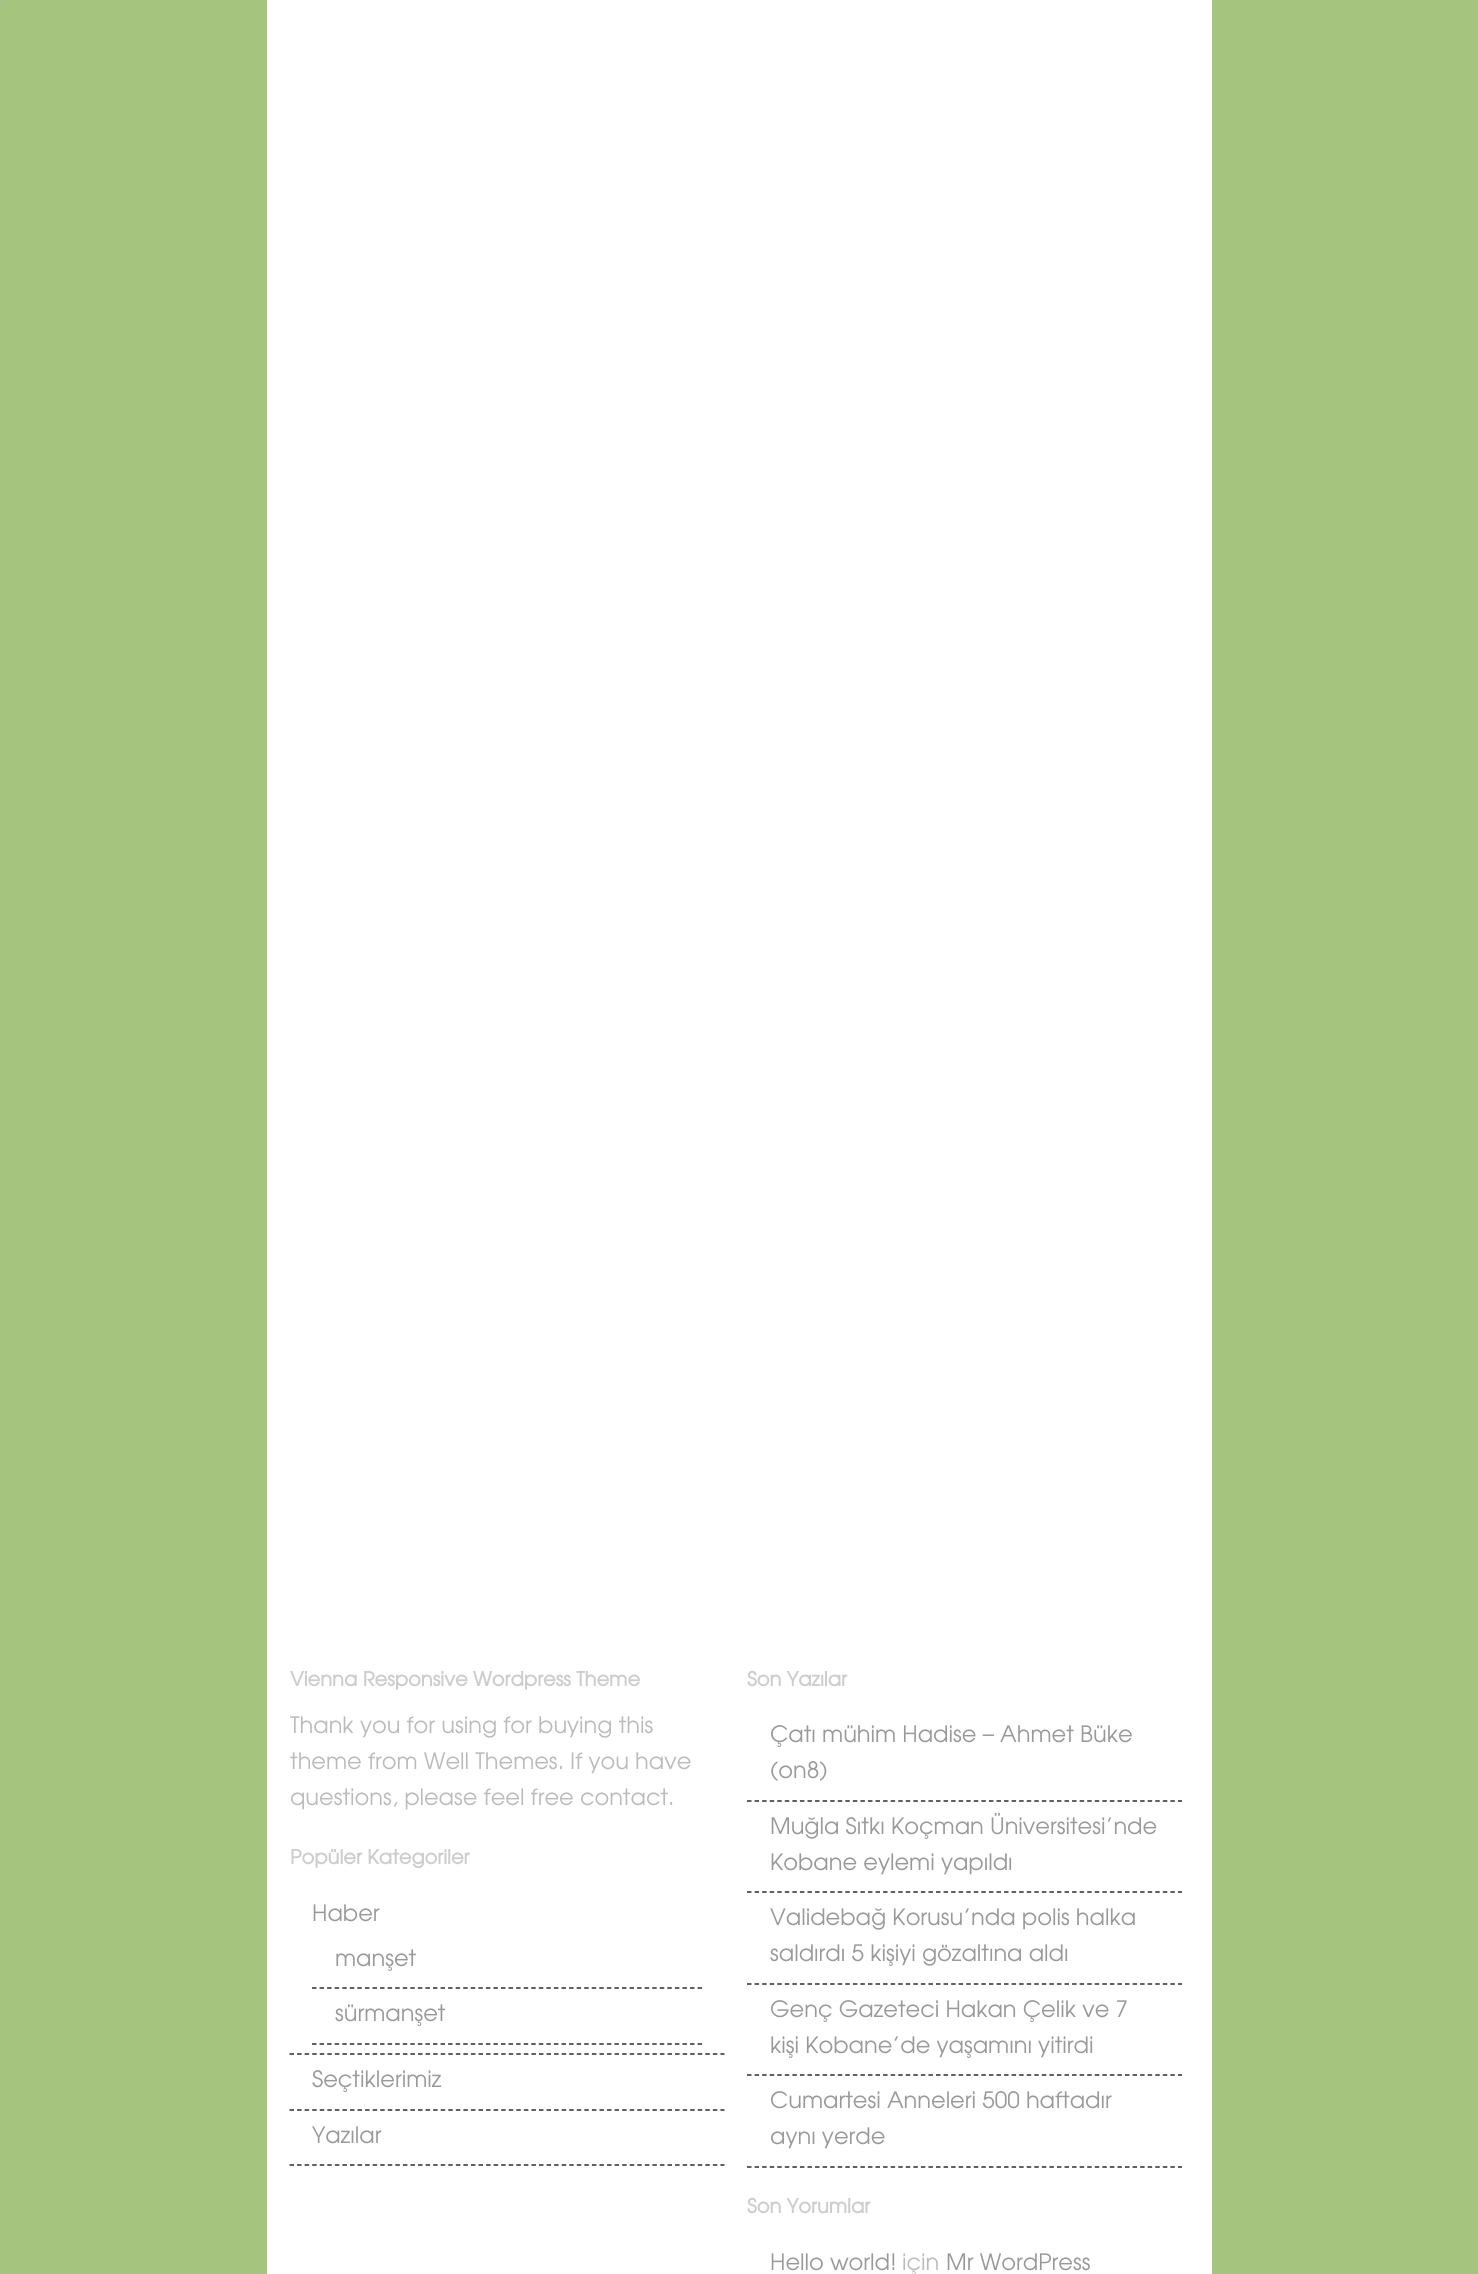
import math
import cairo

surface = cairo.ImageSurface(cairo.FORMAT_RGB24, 1478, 2274)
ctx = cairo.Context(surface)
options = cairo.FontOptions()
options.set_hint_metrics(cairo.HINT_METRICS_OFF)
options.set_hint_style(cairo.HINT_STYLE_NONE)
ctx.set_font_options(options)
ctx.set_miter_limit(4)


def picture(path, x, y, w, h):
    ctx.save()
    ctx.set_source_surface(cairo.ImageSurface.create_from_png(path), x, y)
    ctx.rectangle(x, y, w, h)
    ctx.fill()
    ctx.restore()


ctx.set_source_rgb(0.647, 0.769, 0.49)
ctx.paint()
picture("img1.png", 0, 0, 6, 6)
ctx.set_source_rgb(1, 1, 1)
ctx.rectangle(267, 0, 945, 2274)
ctx.fill()
ctx.select_font_face("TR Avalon", cairo.FONT_SLANT_NORMAL, cairo.FONT_WEIGHT_BOLD)
ctx.set_font_size(19.5)
ctx.set_source_rgb(0.804, 0.804, 0.804)
ctx.move_to(290, 1686)
ctx.show_text("Vienna Responsive Wordpress Theme")
ctx.select_font_face("TR Avalon")
ctx.set_font_size(22.5)
ctx.set_source_rgb(0.733, 0.733, 0.733)
ctx.move_to(290, 1733)
ctx.show_text("Thank you for using for buying this")
ctx.move_to(290, 1769)
ctx.show_text("theme from Well Themes. If you have")
ctx.move_to(290, 1805)
ctx.show_text("questions, please feel free contact.")
ctx.select_font_face("TR Avalon", cairo.FONT_SLANT_NORMAL, cairo.FONT_WEIGHT_BOLD)
ctx.set_font_size(19.5)
ctx.set_source_rgb(0.804, 0.804, 0.804)
ctx.move_to(747, 1686)
ctx.show_text("Son Yazılar")
ctx.new_path()
ctx.move_to(747, 1801)
ctx.line_to(1182, 1801)
ctx.set_source_rgb(0.161, 0.184, 0.2)
ctx.set_line_width(1.5)
ctx.set_dash([4.5, 3.06])
ctx.stroke()
ctx.select_font_face("TR Avalon")
ctx.set_font_size(22.5)
ctx.set_source_rgb(0.6, 0.6, 0.6)
ctx.move_to(770, 1742)
ctx.show_text("Çatı mühim Hadise – Ahmet Büke")
ctx.move_to(770, 1778)
ctx.show_text("(on8)")
ctx.new_path()
ctx.move_to(747, 1892)
ctx.line_to(1182, 1892)
ctx.set_source_rgb(0.161, 0.184, 0.2)
ctx.stroke()
ctx.set_source_rgb(0.6, 0.6, 0.6)
ctx.move_to(770, 1834)
ctx.show_text("Muğla Sıtkı Koçman Üniversitesi’nde")
ctx.move_to(770, 1870)
ctx.show_text("Kobane eylemi yapıldı")
ctx.new_path()
ctx.move_to(747, 1984)
ctx.line_to(1182, 1984)
ctx.set_source_rgb(0.161, 0.184, 0.2)
ctx.stroke()
ctx.set_source_rgb(0.6, 0.6, 0.6)
ctx.move_to(770, 1925)
ctx.show_text("Validebağ Korusu’nda polis halka")
ctx.move_to(770, 1961)
ctx.show_text("saldırdı 5 kişiyi gözaltına aldı")
ctx.new_path()
ctx.move_to(747, 2075)
ctx.line_to(1182, 2075)
ctx.set_source_rgb(0.161, 0.184, 0.2)
ctx.stroke()
ctx.set_source_rgb(0.6, 0.6, 0.6)
ctx.move_to(770, 2017)
ctx.show_text("Genç Gazeteci Hakan Çelik ve 7")
ctx.move_to(770, 2053)
ctx.show_text("kişi Kobane’de yaşamını yitirdi")
ctx.new_path()
ctx.move_to(747, 2167)
ctx.line_to(1182, 2167)
ctx.set_source_rgb(0.161, 0.184, 0.2)
ctx.stroke()
ctx.set_source_rgb(0.6, 0.6, 0.6)
ctx.move_to(770, 2108)
ctx.show_text("Cumartesi Anneleri 500 haftadır")
ctx.move_to(770, 2144)
ctx.show_text("aynı yerde")
ctx.select_font_face("TR Avalon", cairo.FONT_SLANT_NORMAL, cairo.FONT_WEIGHT_BOLD)
ctx.set_font_size(19.5)
ctx.set_source_rgb(0.804, 0.804, 0.804)
ctx.move_to(290, 1864)
ctx.show_text("Popüler Kategoriler")
ctx.new_path()
ctx.move_to(289.5, 2054)
ctx.line_to(724.5, 2054)
ctx.set_source_rgb(0.161, 0.184, 0.2)
ctx.stroke()
ctx.select_font_face("TR Avalon")
ctx.set_font_size(22.5)
ctx.set_source_rgb(0.6, 0.6, 0.6)
ctx.move_to(312, 1921)
ctx.show_text("Haber")
ctx.new_path()
ctx.move_to(312, 1988)
ctx.line_to(702, 1988)
ctx.set_source_rgb(0.161, 0.184, 0.2)
ctx.stroke()
ctx.set_source_rgb(0.6, 0.6, 0.6)
ctx.move_to(335, 1966)
ctx.show_text("manşet")
ctx.new_path()
ctx.move_to(312, 2044)
ctx.line_to(702, 2044)
ctx.set_source_rgb(0.161, 0.184, 0.2)
ctx.stroke()
ctx.set_source_rgb(0.6, 0.6, 0.6)
ctx.move_to(335, 2021)
ctx.show_text("sürmanşet")
ctx.new_path()
ctx.move_to(289.5, 2110)
ctx.line_to(724.5, 2110)
ctx.set_source_rgb(0.161, 0.184, 0.2)
ctx.stroke()
ctx.set_source_rgb(0.6, 0.6, 0.6)
ctx.move_to(312, 2087)
ctx.show_text("Seçtiklerimiz")
ctx.new_path()
ctx.move_to(289.5, 2165)
ctx.line_to(724.5, 2165)
ctx.set_source_rgb(0.161, 0.184, 0.2)
ctx.stroke()
ctx.set_source_rgb(0.6, 0.6, 0.6)
ctx.move_to(312, 2143)
ctx.show_text("Yazılar")
ctx.select_font_face("TR Avalon", cairo.FONT_SLANT_NORMAL, cairo.FONT_WEIGHT_BOLD)
ctx.set_font_size(19.5)
ctx.set_source_rgb(0.804, 0.804, 0.804)
ctx.move_to(747, 2213)
ctx.show_text("Son Yorumlar")
ctx.select_font_face("TR Avalon")
ctx.set_font_size(22.5)
ctx.set_source_rgb(0.6, 0.6, 0.6)
ctx.move_to(770, 2270)
ctx.show_text("Hello world!")
ctx.set_source_rgb(0.733, 0.733, 0.733)
ctx.move_to(902, 2270)
ctx.show_text("için")
ctx.set_source_rgb(0.6, 0.6, 0.6)
ctx.move_to(946, 2270)
ctx.show_text("Mr WordPress")
surface.write_to_png("page.png")
